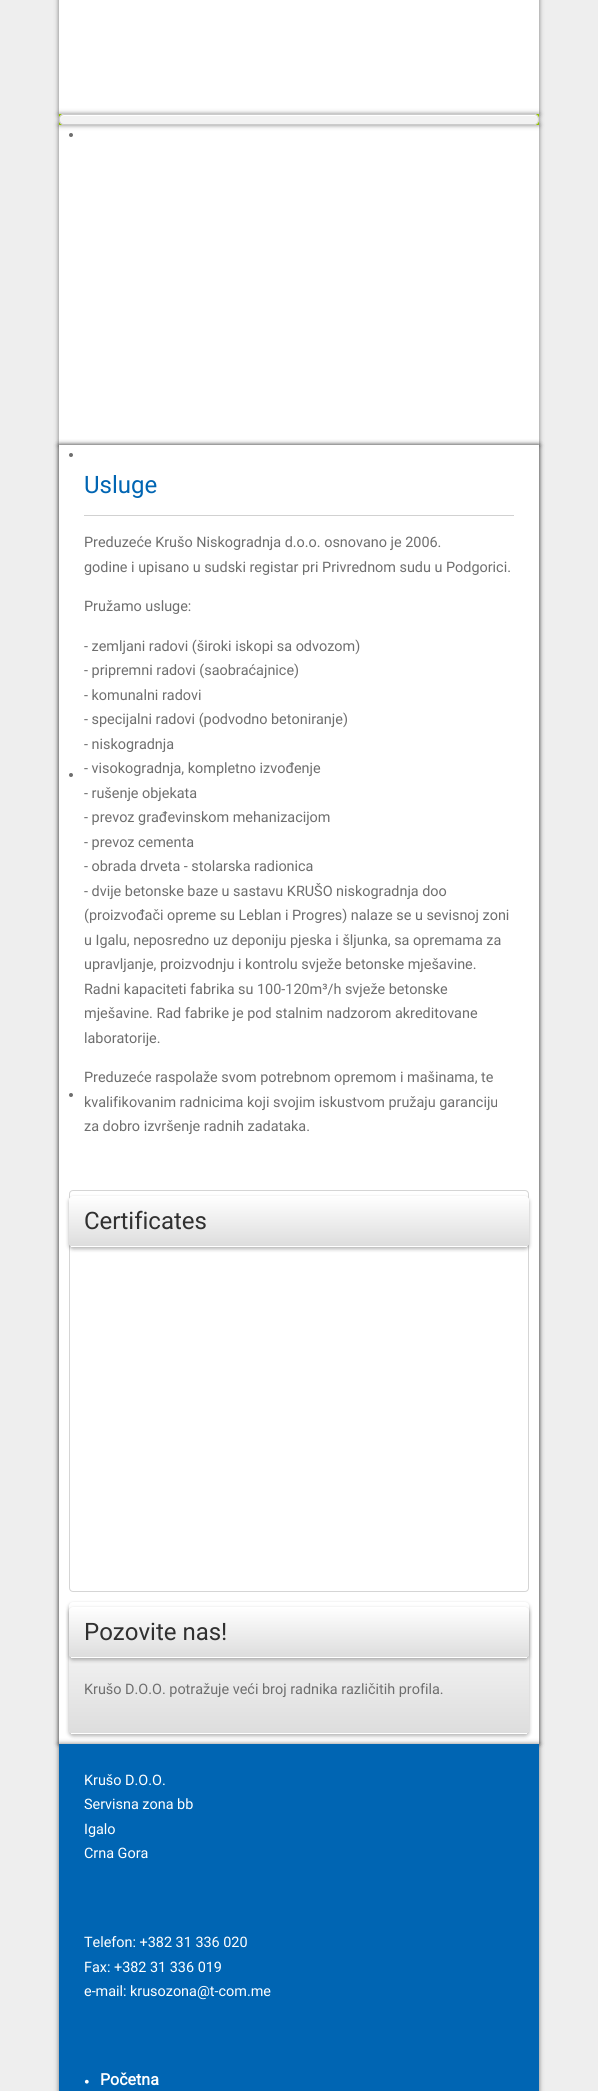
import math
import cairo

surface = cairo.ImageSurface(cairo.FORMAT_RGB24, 598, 2091)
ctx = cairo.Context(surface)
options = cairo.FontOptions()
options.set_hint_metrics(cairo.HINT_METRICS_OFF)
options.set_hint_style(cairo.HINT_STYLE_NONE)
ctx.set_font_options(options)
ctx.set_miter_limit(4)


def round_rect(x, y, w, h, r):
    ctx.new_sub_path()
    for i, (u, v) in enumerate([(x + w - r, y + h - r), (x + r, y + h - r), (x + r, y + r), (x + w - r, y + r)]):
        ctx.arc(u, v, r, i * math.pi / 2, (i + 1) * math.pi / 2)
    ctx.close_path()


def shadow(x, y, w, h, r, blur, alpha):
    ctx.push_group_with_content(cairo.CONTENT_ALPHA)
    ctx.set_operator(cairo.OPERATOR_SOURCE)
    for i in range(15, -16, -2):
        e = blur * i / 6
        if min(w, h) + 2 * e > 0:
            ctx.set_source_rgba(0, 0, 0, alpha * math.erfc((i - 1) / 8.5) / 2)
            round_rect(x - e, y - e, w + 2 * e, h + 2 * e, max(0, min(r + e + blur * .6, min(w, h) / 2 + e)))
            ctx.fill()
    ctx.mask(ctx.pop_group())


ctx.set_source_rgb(0.933, 0.933, 0.933)
ctx.paint()
ctx.set_source_rgb(0, 0, 0)
shadow(59, -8, 480, 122, 0, 2.5, 0.5)
ctx.set_source_rgb(1, 1, 1)
ctx.rectangle(59, 0, 480, 114)
ctx.fill()
ctx.set_source_rgb(0, 0, 0)
shadow(59, 125, 480, 320, 0, 2.5, 0.5)
ctx.set_source_rgb(1, 1, 1)
ctx.rectangle(59, 125, 480, 320)
ctx.fill()
ctx.set_source_rgb(0.431, 0.431, 0.431)
ctx.arc(71, 135, 2, 0, 2 * math.pi)
ctx.fill()
ctx.set_source_rgb(0, 0, 0)
shadow(59, 114, 480, 11, 0, 2.5, 0.5)
ctx.set_source_rgb(0.58, 0.761, 0)
ctx.rectangle(59, 114, 480, 11)
ctx.fill()
ctx.set_source_rgb(0.949, 0.949, 0.949)
round_rect(59, 114, 480, 11, 5)
ctx.fill()
ctx.set_source_rgb(1, 1, 1)
ctx.new_path()
ctx.move_to(64, 116)
ctx.line_to(535, 116)
ctx.line_to(537, 117)
ctx.line_to(538, 120)
ctx.line_to(537, 116)
ctx.line_to(535, 114)
ctx.line_to(64, 114)
ctx.curve_to(61, 114, 60, 117, 60, 120)
ctx.curve_to(60, 118, 62, 116, 64, 116)
ctx.close_path()
ctx.fill()
ctx.set_source_rgb(0.796, 0.796, 0.796)
ctx.new_path()
ctx.move_to(64, 115)
ctx.line_to(534, 115)
ctx.curve_to(537, 115, 538, 118, 538, 120)
ctx.curve_to(538, 117, 537, 114, 534, 114)
ctx.line_to(64, 114)
ctx.curve_to(61, 114, 60, 117, 60, 119)
ctx.curve_to(60, 117, 62, 115, 64, 115)
ctx.close_path()
ctx.fill()
ctx.set_fill_rule(cairo.FILL_RULE_EVEN_ODD)
ctx.new_path()
ctx.move_to(64, 114)
ctx.line_to(534, 114)
ctx.curve_to(536, 114, 537, 115, 538, 116)
ctx.curve_to(540, 120, 538, 125, 534, 125)
ctx.line_to(64, 125)
ctx.curve_to(57, 125, 57, 114, 64, 114)
ctx.close_path()
ctx.move_to(64, 114)
ctx.line_to(534, 114)
ctx.curve_to(537, 114, 538, 117, 538, 119)
ctx.curve_to(538, 122, 537, 124, 534, 124)
ctx.line_to(64, 124)
ctx.curve_to(58, 124, 59, 114, 64, 114)
ctx.close_path()
ctx.fill()
ctx.set_source_rgb(0, 0, 0)
shadow(59, 445, 480, 1299, 0, 2.5, 0.5)
ctx.set_source_rgb(1, 1, 1)
ctx.rectangle(59, 445, 480, 1299)
ctx.fill()
ctx.save()
ctx.new_path()
ctx.move_to(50, 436)
ctx.line_to(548, 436)
ctx.line_to(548, 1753)
ctx.line_to(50, 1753)
ctx.close_path()
ctx.move_to(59, 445)
ctx.line_to(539, 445)
ctx.line_to(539, 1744)
ctx.line_to(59, 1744)
ctx.close_path()
ctx.clip()
ctx.set_source_rgb(0, 0, 0)
shadow(59, 445, 480, 1299, 0, 2.5, 0.5)
ctx.restore()
ctx.set_source_rgb(0.431, 0.431, 0.431)
ctx.arc(71, 455, 2, 0, 2 * math.pi)
ctx.fill()
ctx.arc(71, 775, 2, 0, 2 * math.pi)
ctx.fill()
ctx.arc(71, 1095, 2, 0, 2 * math.pi)
ctx.fill()
ctx.set_source_rgb(0.82, 0.82, 0.82)
ctx.rectangle(84, 515, 430, 1)
ctx.fill()
ctx.select_font_face("Roboto")
ctx.set_font_size(24)
ctx.set_source_rgb(0, 0.396, 0.702)
ctx.move_to(84, 493)
ctx.show_text("Usluge")
ctx.set_font_size(14.4)
ctx.set_source_rgb(0.431, 0.431, 0.431)
ctx.move_to(84, 547)
ctx.show_text("Preduzeće Krušo Niskogradnja d.o.o. osnovano je 2006.")
ctx.move_to(84, 572)
ctx.show_text("godine i upisano u sudski registar pri Privrednom sudu u Podgorici.")
ctx.move_to(84, 611)
ctx.show_text("Pružamo usluge:")
ctx.move_to(84, 651)
ctx.show_text("- zemljani radovi (široki iskopi sa odvozom)")
ctx.move_to(84, 675)
ctx.show_text("- pripremni radovi (saobraćajnice)")
ctx.move_to(84, 700)
ctx.show_text("- komunalni radovi")
ctx.move_to(84, 724)
ctx.show_text("- specijalni radovi (podvodno betoniranje)")
ctx.move_to(84, 749)
ctx.show_text("- niskogradnja")
ctx.move_to(84, 773)
ctx.show_text("- visokogradnja, kompletno izvođenje")
ctx.move_to(84, 798)
ctx.show_text("- rušenje objekata")
ctx.move_to(84, 822)
ctx.show_text("- prevoz građevinskom mehanizacijom")
ctx.move_to(84, 847)
ctx.show_text("- prevoz cementa")
ctx.move_to(84, 871)
ctx.show_text("- obrada drveta - stolarska radionica")
ctx.move_to(84, 896)
ctx.show_text("- dvije betonske baze u sastavu KRUŠO niskogradnja doo")
ctx.move_to(84, 920)
ctx.show_text("(proizvođači opreme su Leblan i Progres) nalaze se u sevisnoj zoni")
ctx.move_to(84, 945)
ctx.show_text("u Igalu, neposredno uz deponiju pjeska i šljunka, sa opremama za")
ctx.move_to(84, 969)
ctx.show_text("upravljanje, proizvodnju i kontrolu svježe betonske mješavine.")
ctx.move_to(84, 994)
ctx.show_text("Radni kapaciteti fabrika su 100-120m³/h svježe betonske")
ctx.move_to(84, 1018)
ctx.show_text("mješavine. Rad fabrike je pod stalnim nadzorom akreditovane")
ctx.move_to(84, 1043)
ctx.show_text("laboratorije.")
ctx.move_to(84, 1082)
ctx.show_text("Preduzeće raspolaže svom potrebnom opremom i mašinama, te")
ctx.move_to(84, 1107)
ctx.show_text("kvalifikovanim radnicima koji svojim iskustvom pružaju garanciju")
ctx.move_to(84, 1131)
ctx.show_text("za dobro izvršenje radnih zadataka.")
round_rect(69.5, 1190.5, 459, 401, 3.5)
ctx.set_source_rgb(0.835, 0.835, 0.835)
ctx.set_line_width(1)
ctx.stroke()
ctx.set_source_rgb(0, 0, 0)
shadow(69, 1198, 460, 51, 4, 2, 0.3)
ctx.set_source_rgb(0.945, 0.945, 0.945)
round_rect(69, 1196, 460, 51, 4)
ctx.fill()
ctx.save()
ctx.set_fill_rule(cairo.FILL_RULE_WINDING)
round_rect(69, 1196, 460, 51, 4)
ctx.clip()
gradient = cairo.LinearGradient(299, 1196, 299, 1246)
gradient.add_color_stop_rgba(0, 1, 1, 1, 1)
gradient.add_color_stop_rgba(1, 0.867, 0.867, 0.867, 1)
ctx.set_source(gradient)
ctx.new_path()
ctx.move_to(73, 1196)
ctx.line_to(525, 1196)
ctx.curve_to(527, 1196, 529, 1198, 529, 1200)
ctx.line_to(529, 1246)
ctx.line_to(69, 1246)
ctx.line_to(69, 1200)
ctx.curve_to(69, 1198, 71, 1196, 73, 1196)
ctx.close_path()
ctx.fill()
ctx.restore()
ctx.set_source_rgb(1, 1, 1)
ctx.rectangle(71, 1246, 456, 1)
ctx.fill()
ctx.set_font_size(24)
ctx.set_source_rgb(0.188, 0.188, 0.188)
ctx.move_to(84, 1229)
ctx.show_text("Certificates")
ctx.set_source_rgb(0, 0, 0)
shadow(69, 1604, 460, 132, 4, 2, 0.3)
ctx.set_source_rgb(0.945, 0.945, 0.945)
round_rect(69, 1602, 460, 132, 4)
ctx.fill()
ctx.save()
ctx.set_fill_rule(cairo.FILL_RULE_WINDING)
round_rect(69, 1602, 460, 132, 4)
ctx.clip()
gradient = cairo.LinearGradient(299, 1602, 299, 1733)
gradient.add_color_stop_rgba(0, 1, 1, 1, 1)
gradient.add_color_stop_rgba(1, 0.867, 0.867, 0.867, 1)
ctx.set_source(gradient)
ctx.new_path()
ctx.move_to(73, 1602)
ctx.line_to(525, 1602)
ctx.curve_to(527, 1602, 529, 1604, 529, 1606)
ctx.line_to(529, 1733)
ctx.line_to(69, 1733)
ctx.line_to(69, 1606)
ctx.curve_to(69, 1604, 71, 1602, 73, 1602)
ctx.close_path()
ctx.fill()
ctx.restore()
ctx.set_source_rgb(1, 1, 1)
ctx.rectangle(71, 1733, 456, 1)
ctx.fill()
ctx.set_source_rgb(0, 0, 0)
shadow(69, 1609, 460, 51, 4, 2, 0.3)
ctx.set_source_rgb(0.945, 0.945, 0.945)
round_rect(69, 1607, 460, 51, 4)
ctx.fill()
ctx.save()
ctx.set_fill_rule(cairo.FILL_RULE_WINDING)
round_rect(69, 1607, 460, 51, 4)
ctx.clip()
gradient = cairo.LinearGradient(299, 1607, 299, 1657)
gradient.add_color_stop_rgba(0, 1, 1, 1, 1)
gradient.add_color_stop_rgba(1, 0.867, 0.867, 0.867, 1)
ctx.set_source(gradient)
ctx.new_path()
ctx.move_to(73, 1607)
ctx.line_to(525, 1607)
ctx.curve_to(527, 1607, 529, 1609, 529, 1611)
ctx.line_to(529, 1657)
ctx.line_to(69, 1657)
ctx.line_to(69, 1611)
ctx.curve_to(69, 1609, 71, 1607, 73, 1607)
ctx.close_path()
ctx.fill()
ctx.restore()
ctx.set_source_rgb(1, 1, 1)
ctx.rectangle(71, 1657, 456, 1)
ctx.fill()
ctx.set_source_rgb(0.188, 0.188, 0.188)
ctx.move_to(84, 1640)
ctx.show_text("Pozovite nas!")
ctx.set_font_size(14.4)
ctx.set_source_rgb(0.431, 0.431, 0.431)
ctx.move_to(84, 1694)
ctx.show_text("Krušo D.O.O. potražuje veći broj radnika različitih profila.")
ctx.set_source_rgb(0, 0, 0)
shadow(59, 1744, 480, 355, 0, 2.5, 0.5)
ctx.set_source_rgb(0, 0.396, 0.702)
ctx.rectangle(59, 1744, 480, 347)
ctx.fill()
ctx.set_source_rgb(1, 1, 1)
ctx.move_to(84, 1785)
ctx.show_text("Krušo D.O.O.")
ctx.move_to(84, 1809)
ctx.show_text("Servisna zona bb")
ctx.move_to(84, 1834)
ctx.show_text("Igalo")
ctx.move_to(84, 1858)
ctx.show_text("Crna Gora")
ctx.move_to(84, 1947)
ctx.show_text("Telefon: +382 31 336 020")
ctx.move_to(84, 1972)
ctx.show_text("Fax: +382 31 336 019")
ctx.move_to(84, 1996)
ctx.show_text("e-mail:")
ctx.move_to(130, 1996)
ctx.show_text("krusozona@t-com.me")
ctx.select_font_face("Liberation Serif")
ctx.set_font_size(16)
ctx.move_to(84, 2087)
ctx.show_text("•")
ctx.select_font_face("Roboto", cairo.FONT_SLANT_NORMAL, cairo.FONT_WEIGHT_BOLD)
ctx.move_to(100, 2085)
ctx.show_text("Početna")
surface.write_to_png("page.png")
